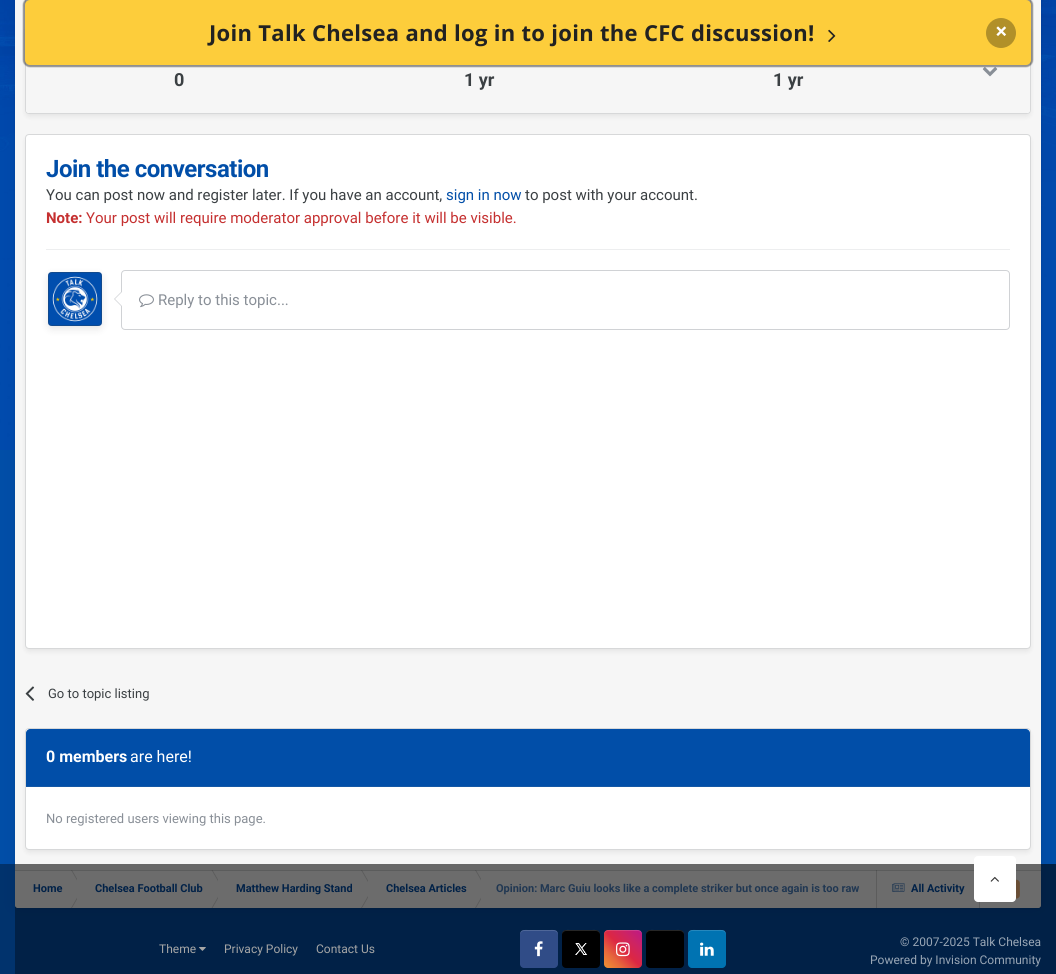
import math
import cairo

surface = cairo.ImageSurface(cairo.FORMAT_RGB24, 1056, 974)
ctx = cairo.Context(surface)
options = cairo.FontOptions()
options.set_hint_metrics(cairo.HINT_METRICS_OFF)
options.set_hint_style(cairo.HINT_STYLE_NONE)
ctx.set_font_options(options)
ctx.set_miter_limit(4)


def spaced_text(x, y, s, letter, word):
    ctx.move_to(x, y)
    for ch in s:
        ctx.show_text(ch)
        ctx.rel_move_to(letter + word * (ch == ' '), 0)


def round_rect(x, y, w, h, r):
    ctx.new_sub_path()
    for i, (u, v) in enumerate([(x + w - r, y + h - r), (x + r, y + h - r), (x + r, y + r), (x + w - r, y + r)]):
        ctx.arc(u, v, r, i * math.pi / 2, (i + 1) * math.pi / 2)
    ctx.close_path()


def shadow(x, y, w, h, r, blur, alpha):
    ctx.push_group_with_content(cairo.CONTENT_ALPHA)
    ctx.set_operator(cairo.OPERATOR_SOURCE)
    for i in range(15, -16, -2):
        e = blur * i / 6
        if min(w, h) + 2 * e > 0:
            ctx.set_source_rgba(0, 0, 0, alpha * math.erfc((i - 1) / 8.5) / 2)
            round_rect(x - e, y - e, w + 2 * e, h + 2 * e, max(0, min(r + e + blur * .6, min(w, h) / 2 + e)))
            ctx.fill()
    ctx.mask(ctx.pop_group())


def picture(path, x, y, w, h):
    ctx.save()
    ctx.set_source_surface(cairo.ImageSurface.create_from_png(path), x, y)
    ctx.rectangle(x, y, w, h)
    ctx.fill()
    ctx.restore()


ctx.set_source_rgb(0.004, 0.306, 0.659)
ctx.paint()
picture("img1.png", 0, 0, 1056, 450)
ctx.set_source_rgb(0, 0, 0)
shadow(15, -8, 1026, 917, 3, 1.5, 0.08)
shadow(15, -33, 1026, 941, 3, 10, 0.06)
ctx.set_source_rgb(0.961, 0.961, 0.961)
ctx.new_path()
ctx.move_to(15, -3)
ctx.line_to(1041, -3)
ctx.line_to(1041, 905)
ctx.curve_to(1041, 906.5, 1039.5, 908, 1038, 908)
ctx.line_to(18, 908)
ctx.curve_to(16.5, 908, 15, 906.5, 15, 905)
ctx.close_path()
ctx.fill()
ctx.set_source_rgb(0, 0, 0)
shadow(26, -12, 1004, 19, 3, 3, 0.08)
ctx.set_source_rgb(1, 1, 1)
round_rect(25, -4, 1006, 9, 4)
ctx.fill()
round_rect(25.5, -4.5, 1005, 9, 3.5)
ctx.set_source_rgba(0.231, 0.251, 0.263, 0.2)
ctx.set_line_width(1)
ctx.stroke()
ctx.set_source_rgb(0.957, 0.957, 0.957)
ctx.new_path()
ctx.move_to(26, -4)
ctx.line_to(1030, -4)
ctx.line_to(1030, 0)
ctx.curve_to(1030, 2, 1028, 4, 1026, 4)
ctx.line_to(30, 4)
ctx.curve_to(28, 4, 26, 2, 26, 0)
ctx.close_path()
ctx.fill()
ctx.set_source_rgb(0, 0, 0)
shadow(26, 29, 1004, 87, 3, 3, 0.08)
ctx.set_source_rgb(1, 1, 1)
round_rect(25, 25, 1006, 89, 4)
ctx.fill()
round_rect(25.5, 25.5, 1005, 88, 3.5)
ctx.set_source_rgba(0.231, 0.251, 0.263, 0.2)
ctx.stroke()
ctx.set_source_rgb(0.961, 0.961, 0.961)
round_rect(26, 26, 1004, 87, 3)
ctx.fill()
picture("img3.png", 982, 67, 16, 10)
ctx.set_source_rgb(0, 0, 0)
shadow(23, -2, 1010, 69, 7, 0.5, 0.42)
ctx.set_source_rgb(0.992, 0.804, 0.231)
round_rect(25, 0, 1006, 65, 5)
ctx.fill()
ctx.select_font_face("Open Sans", cairo.FONT_SLANT_NORMAL, cairo.FONT_WEIGHT_BOLD)
ctx.set_font_size(22)
ctx.set_source_rgb(0.133, 0.133, 0.133)
spaced_text(209, 41, "Join Talk Chelsea and log in to join the CFC discussion!", 0.3, 0)
picture("img2.png", 828, 29, 8, 13)
ctx.set_source_rgb(0.694, 0.565, 0.161)
ctx.arc(1001, 33, 15, 0, 2 * math.pi)
ctx.fill()
ctx.set_source_rgb(1, 1, 1)
spaced_text(995, 39, "×", 0.3, 0)
ctx.select_font_face("Roboto", cairo.FONT_SLANT_NORMAL, cairo.FONT_WEIGHT_BOLD)
ctx.set_font_size(18)
ctx.set_source_rgb(0.231, 0.251, 0.263)
ctx.move_to(174, 86)
ctx.show_text("0")
ctx.move_to(464, 86)
ctx.show_text("1 yr")
ctx.move_to(773, 86)
ctx.show_text("1 yr")
ctx.set_source_rgb(0, 0, 0)
shadow(26, 138, 1004, 513, 3, 3, 0.08)
ctx.set_source_rgb(1, 1, 1)
round_rect(25, 134, 1006, 515, 4)
ctx.fill()
round_rect(25.5, 134.5, 1005, 514, 3.5)
ctx.set_source_rgba(0.231, 0.251, 0.263, 0.2)
ctx.stroke()
ctx.set_source_rgb(0.929, 0.933, 0.937)
ctx.rectangle(46, 249, 964, 1)
ctx.fill()
ctx.set_font_size(24)
ctx.set_source_rgb(0.004, 0.306, 0.659)
spaced_text(46, 177, "Join the conversation", -0.5, 0)
ctx.select_font_face("Roboto")
ctx.set_font_size(15)
ctx.set_source_rgb(0.231, 0.251, 0.263)
ctx.move_to(46, 200)
ctx.show_text("You can post now and register later. If you have an account,")
ctx.set_source_rgb(0.004, 0.306, 0.659)
ctx.move_to(446, 200)
ctx.show_text("sign in now")
ctx.set_source_rgb(0.231, 0.251, 0.263)
ctx.move_to(525, 200)
ctx.show_text("to post with your account.")
ctx.select_font_face("Roboto", cairo.FONT_SLANT_NORMAL, cairo.FONT_WEIGHT_BOLD)
ctx.set_source_rgb(0.773, 0.188, 0.188)
ctx.move_to(46, 223)
ctx.show_text("Note:")
ctx.select_font_face("Roboto")
ctx.move_to(86, 223)
ctx.show_text("Your post will require moderator approval before it will be visible.")
picture("img4.png", 48, 272, 54, 54)
ctx.save()
ctx.set_fill_rule(cairo.FILL_RULE_EVEN_ODD)
ctx.new_path()
ctx.move_to(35, 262)
ctx.line_to(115, 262)
ctx.line_to(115, 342)
ctx.line_to(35, 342)
ctx.close_path()
ctx.move_to(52, 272)
ctx.line_to(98, 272)
ctx.curve_to(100, 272, 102, 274, 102, 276)
ctx.line_to(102, 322)
ctx.curve_to(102, 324, 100, 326, 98, 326)
ctx.line_to(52, 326)
ctx.curve_to(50, 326, 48, 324, 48, 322)
ctx.line_to(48, 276)
ctx.curve_to(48, 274, 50, 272, 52, 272)
ctx.close_path()
ctx.clip()
ctx.set_source_rgb(0, 0, 0)
shadow(48, 275, 54, 54, 4, 4, 0.1)
ctx.restore()
round_rect(48.5, 272.5, 53, 53, 3.5)
ctx.set_source_rgba(0.231, 0.251, 0.263, 0.3)
ctx.stroke()
round_rect(121.5, 270.5, 888, 59, 3.5)
ctx.set_source_rgb(0.816, 0.824, 0.835)
ctx.stroke()
ctx.new_path()
ctx.move_to(121, 292)
ctx.line_to(121, 306)
ctx.line_to(114, 299)
ctx.close_path()
ctx.fill()
ctx.set_source_rgb(1, 1, 1)
ctx.new_path()
ctx.move_to(122, 292)
ctx.line_to(122, 306)
ctx.line_to(115, 299)
ctx.close_path()
ctx.fill()
picture("img5.png", 139, 294, 15, 14)
ctx.set_source_rgb(0.537, 0.561, 0.592)
ctx.move_to(158, 305)
ctx.show_text("Reply to this topic...")
picture("img6.png", 25, 686, 10, 15)
ctx.set_font_size(13)
ctx.set_source_rgb(0.231, 0.251, 0.263)
ctx.move_to(48, 698)
ctx.show_text("Go to topic listing")
ctx.set_source_rgb(0, 0, 0)
shadow(26, 732, 1004, 120, 3, 3, 0.08)
ctx.set_source_rgb(1, 1, 1)
round_rect(25, 728, 1006, 122, 4)
ctx.fill()
round_rect(25.5, 728.5, 1005, 121, 3.5)
ctx.set_source_rgba(0.231, 0.251, 0.263, 0.2)
ctx.stroke()
ctx.set_source_rgb(0.004, 0.306, 0.659)
ctx.new_path()
ctx.move_to(30, 729)
ctx.line_to(1026, 729)
ctx.curve_to(1028, 729, 1030, 731, 1030, 733)
ctx.line_to(1030, 787)
ctx.line_to(26, 787)
ctx.line_to(26, 733)
ctx.curve_to(26, 731, 28, 729, 30, 729)
ctx.close_path()
ctx.fill()
ctx.set_source_rgb(0.082, 0.345, 0.647)
ctx.rectangle(26, 786, 1004, 1)
ctx.fill()
ctx.select_font_face("Roboto", cairo.FONT_SLANT_NORMAL, cairo.FONT_WEIGHT_BOLD)
ctx.set_font_size(16)
ctx.set_source_rgb(1, 1, 1)
ctx.move_to(46, 762)
ctx.show_text("0 members")
ctx.select_font_face("Roboto")
ctx.move_to(130, 762)
ctx.show_text("are here!")
ctx.set_font_size(13)
ctx.set_source_rgb(0.537, 0.561, 0.592)
ctx.move_to(46, 823)
ctx.show_text("No registered users viewing this page.")
ctx.set_source_rgb(1, 1, 1)
ctx.new_path()
ctx.move_to(15, 870)
ctx.line_to(1041, 870)
ctx.line_to(1041, 905)
ctx.curve_to(1041, 906.5, 1039.5, 908, 1038, 908)
ctx.line_to(18, 908)
ctx.curve_to(16.5, 908, 15, 906.5, 15, 905)
ctx.close_path()
ctx.fill()
ctx.save()
ctx.rectangle(15, 870, 62, 38)
ctx.clip()
ctx.set_source_rgb(0.847, 0.851, 0.851)
ctx.new_path()
ctx.move_to(71, 870)
ctx.line_to(72, 870)
ctx.line_to(83, 889)
ctx.line_to(82, 889)
ctx.close_path()
ctx.move_to(71, 908)
ctx.line_to(72, 908)
ctx.line_to(83, 889)
ctx.line_to(82, 889)
ctx.close_path()
ctx.fill()
ctx.restore()
ctx.save()
ctx.rectangle(77, 870, 141, 38)
ctx.clip()
ctx.set_source_rgb(0.847, 0.851, 0.851)
ctx.new_path()
ctx.move_to(211.5, 870)
ctx.line_to(212.5, 870)
ctx.line_to(223.5, 889)
ctx.line_to(222.5, 889)
ctx.close_path()
ctx.move_to(211.5, 908)
ctx.line_to(212.5, 908)
ctx.line_to(223.5, 889)
ctx.line_to(222.5, 889)
ctx.close_path()
ctx.fill()
ctx.restore()
ctx.save()
ctx.rectangle(218, 870, 150, 38)
ctx.clip()
ctx.set_source_rgb(0.847, 0.851, 0.851)
ctx.new_path()
ctx.move_to(361, 870)
ctx.line_to(362, 870)
ctx.line_to(373, 889)
ctx.line_to(372, 889)
ctx.close_path()
ctx.move_to(361, 908)
ctx.line_to(362, 908)
ctx.line_to(373, 889)
ctx.line_to(372, 889)
ctx.close_path()
ctx.fill()
ctx.restore()
ctx.save()
ctx.rectangle(368, 870, 113, 38)
ctx.clip()
ctx.set_source_rgb(0.847, 0.851, 0.851)
ctx.new_path()
ctx.move_to(475, 870)
ctx.line_to(476, 870)
ctx.line_to(487, 889)
ctx.line_to(486, 889)
ctx.close_path()
ctx.move_to(475, 908)
ctx.line_to(476, 908)
ctx.line_to(487, 889)
ctx.line_to(486, 889)
ctx.close_path()
ctx.fill()
ctx.restore()
ctx.set_source_rgb(0.847, 0.851, 0.851)
ctx.rectangle(876, 870, 1, 38)
ctx.fill()
ctx.set_source_rgba(0.231, 0.251, 0.263, 0.2)
ctx.rectangle(15, 870, 1026, 1)
ctx.fill()
ctx.select_font_face("Roboto", cairo.FONT_SLANT_NORMAL, cairo.FONT_WEIGHT_BOLD)
ctx.set_font_size(11)
ctx.set_source_rgb(0.004, 0.306, 0.659)
ctx.move_to(33, 892)
ctx.show_text("Home")
ctx.move_to(95, 892)
ctx.show_text("Chelsea Football Club")
ctx.move_to(236, 892)
ctx.show_text("Matthew Harding Stand")
ctx.move_to(386, 892)
ctx.show_text("Chelsea Articles")
ctx.set_source_rgb(0.302, 0.514, 0.761)
ctx.move_to(496, 892)
ctx.show_text("Opinion: Marc Guiu looks like a complete striker but once again is too raw")
picture("img7.png", 892, 883, 13, 9)
ctx.set_source_rgb(0.004, 0.306, 0.659)
ctx.move_to(911, 892)
ctx.show_text("All Activity")
ctx.set_source_rgb(0.847, 0.851, 0.851)
ctx.rectangle(979, 902, 1, 6)
ctx.fill()
picture("img8.png", 1015, 879, 5, 20)
ctx.set_source_rgba(0, 0, 0, 0.35)
ctx.rectangle(0, 864, 1056, 110)
ctx.fill()
ctx.select_font_face("Roboto")
ctx.set_font_size(12)
ctx.set_source_rgb(1, 1, 1)
ctx.move_to(159, 953)
ctx.show_text("Theme")
picture("img10.png", 199, 947, 7, 4)
ctx.move_to(224, 953)
ctx.show_text("Privacy Policy")
ctx.move_to(316, 953)
ctx.show_text("Contact Us")
ctx.set_source_rgba(0, 0, 0, 0.35)
ctx.rectangle(15, 864, 1041, 110)
ctx.fill()
ctx.set_source_rgb(1, 1, 1)
round_rect(974, 856, 42, 46, 4)
ctx.fill()
picture("img9.png", 990, 876, 9, 6)
ctx.set_source_rgb(0.188, 0.298, 0.529)
round_rect(520, 930, 38, 38, 4)
ctx.fill()
ctx.set_source_rgba(1, 1, 1, 0.15)
ctx.new_path()
ctx.move_to(524, 931)
ctx.curve_to(522, 931, 520, 933, 520, 935)
ctx.curve_to(520, 929, 524.5, 930, 529, 930)
ctx.line_to(549, 930)
ctx.curve_to(553.5, 930, 558, 929, 558, 935)
ctx.curve_to(558, 933, 556, 931, 554, 931)
ctx.close_path()
ctx.fill()
picture("img11.png", 534, 941, 9, 16)
ctx.set_source_rgb(0, 0, 0)
round_rect(562, 930, 38, 38, 4)
ctx.fill()
ctx.set_source_rgba(1, 1, 1, 0.15)
ctx.new_path()
ctx.move_to(566, 931)
ctx.curve_to(564, 931, 562, 933, 562, 935)
ctx.curve_to(562, 929, 566.5, 930, 571, 930)
ctx.line_to(591, 930)
ctx.curve_to(595.5, 930, 600, 929, 600, 935)
ctx.curve_to(600, 933, 598, 931, 596, 931)
ctx.close_path()
ctx.fill()
picture("img12.png", 575, 943, 13, 12)
gradient = cairo.LinearGradient(604, 968, 642, 930)
gradient.add_color_stop_rgba(0, 0.941, 0.58, 0.2, 1)
gradient.add_color_stop_rgba(0.25, 0.902, 0.408, 0.235, 1)
gradient.add_color_stop_rgba(0.5, 0.863, 0.153, 0.263, 1)
gradient.add_color_stop_rgba(0.75, 0.8, 0.137, 0.4, 1)
gradient.add_color_stop_rgba(1, 0.737, 0.094, 0.533, 1)
ctx.set_source(gradient)
round_rect(604, 930, 38, 38, 4)
ctx.fill()
ctx.set_source_rgba(1, 1, 1, 0.15)
ctx.new_path()
ctx.move_to(608, 931)
ctx.curve_to(606, 931, 604, 933, 604, 935)
ctx.curve_to(604, 929, 608.5, 930, 613, 930)
ctx.line_to(633, 930)
ctx.curve_to(637.5, 930, 642, 929, 642, 935)
ctx.curve_to(642, 933, 640, 931, 638, 931)
ctx.close_path()
ctx.fill()
picture("img13.png", 616, 942, 14, 15)
ctx.set_source_rgb(0, 0, 0)
round_rect(646, 930, 38, 38, 4)
ctx.fill()
ctx.set_source_rgba(1, 1, 1, 0.15)
ctx.new_path()
ctx.move_to(650, 931)
ctx.curve_to(648, 931, 646, 933, 646, 935)
ctx.curve_to(646, 929, 650.5, 930, 655, 930)
ctx.line_to(675, 930)
ctx.curve_to(679.5, 930, 684, 929, 684, 935)
ctx.curve_to(684, 933, 682, 931, 680, 931)
ctx.close_path()
ctx.fill()
ctx.set_source_rgb(0, 0.451, 0.698)
round_rect(688, 930, 38, 38, 4)
ctx.fill()
ctx.set_source_rgba(1, 1, 1, 0.15)
ctx.new_path()
ctx.move_to(692, 931)
ctx.curve_to(690, 931, 688, 933, 688, 935)
ctx.curve_to(688, 929, 692.5, 930, 697, 930)
ctx.line_to(717, 930)
ctx.curve_to(721.5, 930, 726, 929, 726, 935)
ctx.curve_to(726, 933, 724, 931, 722, 931)
ctx.close_path()
ctx.fill()
picture("img14.png", 700, 942, 14, 14)
ctx.set_source_rgb(0.6, 0.651, 0.71)
ctx.move_to(900, 946)
ctx.show_text("© 2007-2025 Talk Chelsea")
ctx.move_to(870, 964)
ctx.show_text("Powered by Invision Community")
surface.write_to_png("page.png")
